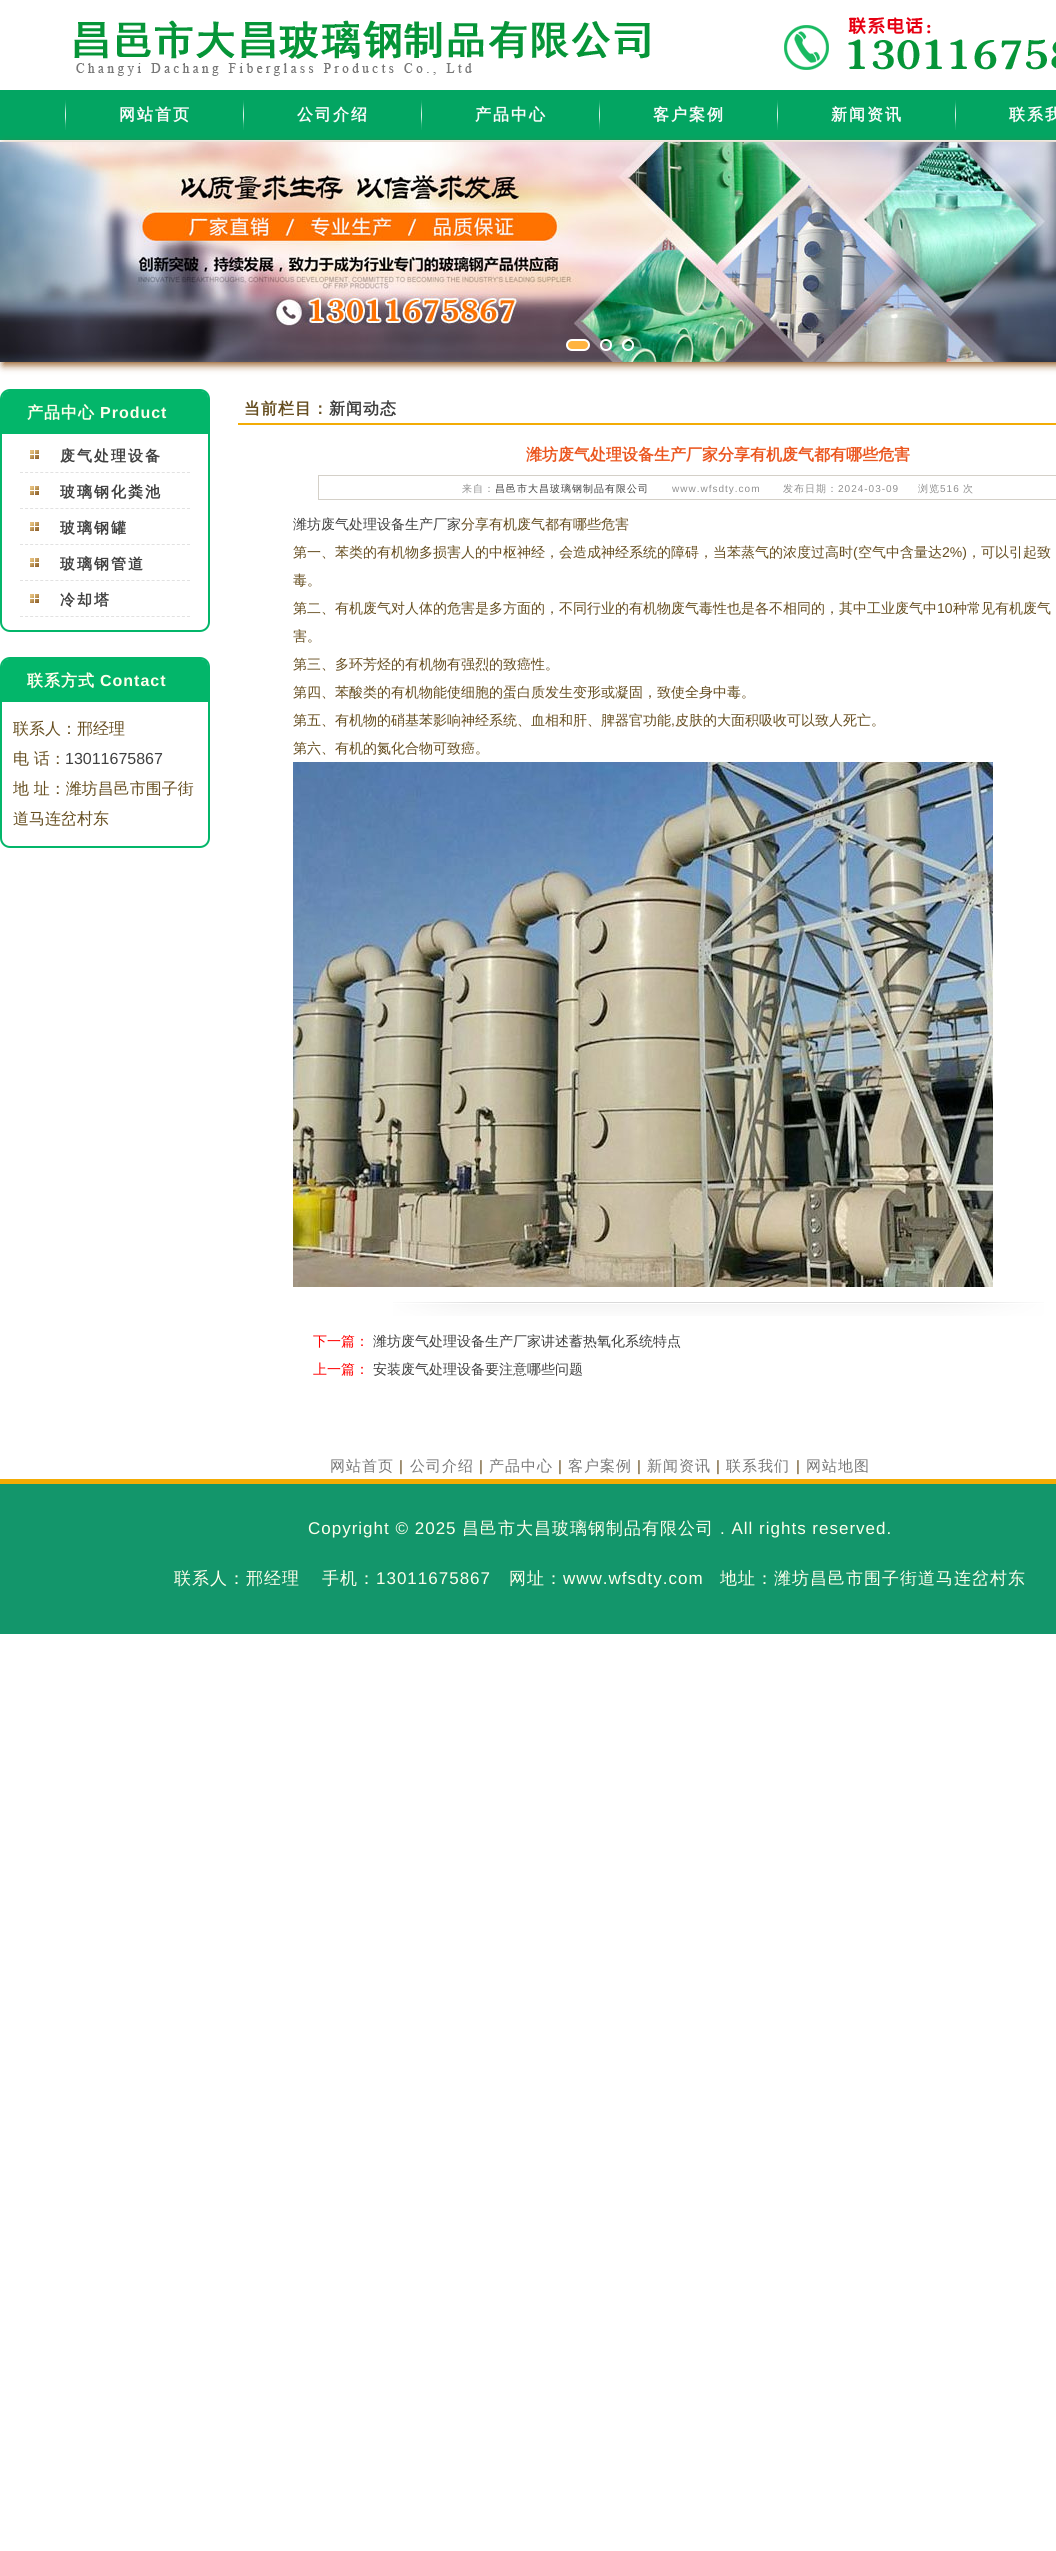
import math
import cairo

surface = cairo.ImageSurface(cairo.FORMAT_RGB24, 1056, 2551)
ctx = cairo.Context(surface)
options = cairo.FontOptions()
options.set_hint_metrics(cairo.HINT_METRICS_OFF)
options.set_hint_style(cairo.HINT_STYLE_NONE)
ctx.set_font_options(options)
ctx.set_miter_limit(4)


def spaced_text(x, y, s, letter, word):
    ctx.move_to(x, y)
    for ch in s:
        ctx.show_text(ch)
        ctx.rel_move_to(letter + word * (ch == ' '), 0)


def round_rect(x, y, w, h, r):
    ctx.new_sub_path()
    for i, (u, v) in enumerate([(x + w - r, y + h - r), (x + r, y + h - r), (x + r, y + r), (x + w - r, y + r)]):
        ctx.arc(u, v, r, i * math.pi / 2, (i + 1) * math.pi / 2)
    ctx.close_path()


def shadow(x, y, w, h, r, blur, alpha):
    ctx.push_group_with_content(cairo.CONTENT_ALPHA)
    ctx.set_operator(cairo.OPERATOR_SOURCE)
    for i in range(15, -16, -2):
        e = blur * i / 6
        if min(w, h) + 2 * e > 0:
            ctx.set_source_rgba(0, 0, 0, alpha * math.erfc((i - 1) / 8.5) / 2)
            round_rect(x - e, y - e, w + 2 * e, h + 2 * e, max(0, min(r + e + blur * .6, min(w, h) / 2 + e)))
            ctx.fill()
    ctx.mask(ctx.pop_group())


def picture(path, x, y, w, h):
    ctx.save()
    ctx.set_source_surface(cairo.ImageSurface.create_from_png(path), x, y)
    ctx.rectangle(x, y, w, h)
    ctx.fill()
    ctx.restore()


ctx.set_source_rgb(1, 1, 1)
ctx.paint()
picture("img1.png", 74, 20, 576, 56)
picture("img2.png", 784, 17, 272, 53)
ctx.set_source_rgb(0.012, 0.647, 0.384)
ctx.rectangle(0, 90, 1056, 50)
ctx.fill()
picture("img3.png", 65, 100, 1, 30)
picture("img3.png", 243, 100, 1, 30)
ctx.select_font_face("WenQuanYi Zen Hei", cairo.FONT_SLANT_NORMAL, cairo.FONT_WEIGHT_BOLD)
ctx.set_font_size(16)
ctx.set_source_rgb(0.98, 0.98, 0.98)
spaced_text(119, 120, "网站首页", 2, 0)
picture("img3.png", 421, 100, 1, 30)
spaced_text(297, 120, "公司介绍", 2, 0)
picture("img3.png", 599, 100, 1, 30)
spaced_text(475, 120, "产品中心", 2, 0)
picture("img3.png", 777, 100, 1, 30)
spaced_text(653, 120, "客户案例", 2, 0)
picture("img3.png", 955, 100, 1, 30)
spaced_text(831, 120, "新闻资讯", 2, 0)
spaced_text(1009, 120, "联系我", 2, 0)
ctx.set_source_rgb(0.584, 0.361, 0.141)
shadow(3, 145, 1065, 220, 0, 4, 1)
picture("img4.png", 0, 142, 1056, 220)
ctx.set_source_rgb(1, 0.702, 0.251)
round_rect(567, 340, 22, 10, 5)
ctx.fill_preserve()
ctx.set_source_rgb(1, 1, 1)
ctx.stroke()
ctx.arc(606, 345, 5, 0, 2 * math.pi)
ctx.stroke()
ctx.arc(628, 345, 5, 0, 2 * math.pi)
ctx.stroke()
round_rect(1, 390, 208, 241, 9)
ctx.set_source_rgb(0.012, 0.714, 0.416)
ctx.stroke()
ctx.new_path()
ctx.move_to(9, 391)
ctx.line_to(201, 391)
ctx.curve_to(205, 391, 208, 394, 208, 398)
ctx.line_to(208, 434)
ctx.line_to(2, 434)
ctx.line_to(2, 398)
ctx.curve_to(2, 394, 5, 391, 9, 391)
ctx.close_path()
ctx.fill()
ctx.set_source_rgb(1, 1, 0.925)
spaced_text(27, 418, "产品中心", 1, 0)
ctx.select_font_face("Liberation Sans", cairo.FONT_SLANT_NORMAL, cairo.FONT_WEIGHT_BOLD)
spaced_text(100, 418, "Product", 1, 0)
picture("img5.png", 30, 450, 9, 9)
ctx.new_path()
ctx.move_to(20, 472.5)
ctx.line_to(190, 472.5)
ctx.set_source_rgb(0.886, 0.886, 0.886)
ctx.set_line_width(1)
ctx.set_dash([3, 2.06])
ctx.stroke()
ctx.select_font_face("WenQuanYi Zen Hei", cairo.FONT_SLANT_NORMAL, cairo.FONT_WEIGHT_BOLD)
ctx.set_font_size(15)
ctx.set_source_rgb(0.251, 0.251, 0.251)
spaced_text(60, 461, "废气处理设备", 2, 0)
picture("img5.png", 30, 486, 9, 9)
ctx.new_path()
ctx.move_to(20, 508.5)
ctx.line_to(190, 508.5)
ctx.set_source_rgb(0.886, 0.886, 0.886)
ctx.stroke()
ctx.set_source_rgb(0.251, 0.251, 0.251)
spaced_text(60, 497, "玻璃钢化粪池", 2, 0)
picture("img5.png", 30, 522, 9, 9)
ctx.new_path()
ctx.move_to(20, 544.5)
ctx.line_to(190, 544.5)
ctx.set_source_rgb(0.886, 0.886, 0.886)
ctx.stroke()
ctx.set_source_rgb(0.251, 0.251, 0.251)
spaced_text(60, 533, "玻璃钢罐", 2, 0)
picture("img5.png", 30, 558, 9, 9)
ctx.new_path()
ctx.move_to(20, 580.5)
ctx.line_to(190, 580.5)
ctx.set_source_rgb(0.886, 0.886, 0.886)
ctx.stroke()
ctx.set_source_rgb(0.251, 0.251, 0.251)
spaced_text(60, 569, "玻璃钢管道", 2, 0)
picture("img5.png", 30, 594, 9, 9)
ctx.new_path()
ctx.move_to(20, 616.5)
ctx.line_to(190, 616.5)
ctx.set_source_rgb(0.886, 0.886, 0.886)
ctx.stroke()
ctx.set_source_rgb(0.251, 0.251, 0.251)
spaced_text(60, 605, "冷却塔", 2, 0)
round_rect(1, 658, 208, 189, 9)
ctx.set_source_rgb(0.012, 0.714, 0.416)
ctx.set_line_width(2)
ctx.set_dash([])
ctx.stroke()
ctx.new_path()
ctx.move_to(9, 659)
ctx.line_to(201, 659)
ctx.curve_to(205, 659, 208, 662, 208, 666)
ctx.line_to(208, 702)
ctx.line_to(2, 702)
ctx.line_to(2, 666)
ctx.curve_to(2, 662, 5, 659, 9, 659)
ctx.close_path()
ctx.fill()
ctx.set_font_size(16)
ctx.set_source_rgb(1, 1, 0.925)
spaced_text(27, 686, "联系方式", 1, 0)
ctx.select_font_face("Liberation Sans", cairo.FONT_SLANT_NORMAL, cairo.FONT_WEIGHT_BOLD)
spaced_text(100, 686, "Contact", 1, 0)
ctx.select_font_face("WenQuanYi Zen Hei Medium")
ctx.set_source_rgb(0.4, 0.306, 0.125)
ctx.move_to(13, 734)
ctx.show_text("联系人：邢经理")
ctx.move_to(13, 764)
ctx.show_text("电 话：")
ctx.select_font_face("Liberation Sans")
ctx.set_source_rgb(0.251, 0.251, 0.251)
ctx.move_to(65, 764)
ctx.show_text("13011675867")
ctx.select_font_face("WenQuanYi Zen Hei Medium")
ctx.set_source_rgb(0.4, 0.306, 0.125)
ctx.move_to(13, 794)
ctx.show_text("地 址：潍坊昌邑市围子街")
ctx.move_to(13, 824)
ctx.show_text("道马连岔村东")
ctx.set_source_rgb(0.953, 0.675, 0.02)
ctx.rectangle(238, 423, 818, 2)
ctx.fill()
ctx.select_font_face("WenQuanYi Zen Hei", cairo.FONT_SLANT_NORMAL, cairo.FONT_WEIGHT_BOLD)
ctx.set_source_rgb(0.4, 0.306, 0.125)
spaced_text(244, 414, "当前栏目：", 1, 0)
ctx.set_source_rgb(0.251, 0.251, 0.251)
spaced_text(329, 414, "新闻动态", 1, 0)
ctx.set_source_rgb(0.918, 0.341, 0.125)
ctx.move_to(526, 460)
ctx.show_text("潍坊废气处理设备生产厂家分享有机废气都有哪些危害")
ctx.rectangle(318.5, 475.5, 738, 24)
ctx.set_source_rgb(0.831, 0.816, 0.784)
ctx.set_line_width(1)
ctx.stroke()
ctx.select_font_face("WenQuanYi Zen Hei Medium")
ctx.set_font_size(10)
ctx.set_source_rgb(0.561, 0.561, 0.561)
spaced_text(462, 492, "来自：", 1, 0)
ctx.set_source_rgb(0.251, 0.251, 0.251)
spaced_text(495, 492, "昌邑市大昌玻璃钢制品有限公司", 1, 0)
ctx.select_font_face("Liberation Sans")
ctx.set_source_rgb(0.561, 0.561, 0.561)
spaced_text(672, 492, "www.wfsdty.com", 1, 0)
ctx.select_font_face("WenQuanYi Zen Hei Medium")
spaced_text(783, 492, "发布日期：", 1, 0)
ctx.select_font_face("Liberation Sans")
spaced_text(838, 492, "2024-03-09", 1, 0)
ctx.select_font_face("WenQuanYi Zen Hei Medium")
spaced_text(918, 492, "浏览", 1, 0)
ctx.select_font_face("Liberation Sans")
spaced_text(940, 492, "516", 1, 0)
ctx.select_font_face("WenQuanYi Zen Hei Medium")
spaced_text(963, 492, "次", 1, 0)
picture("img6.png", 393, 1302, 651, 14)
ctx.set_font_size(14)
ctx.set_source_rgb(0.251, 0.251, 0.251)
ctx.move_to(293, 529)
ctx.show_text("潍坊废气处理设备生产厂家")
ctx.set_source_rgb(0.4, 0.306, 0.125)
ctx.move_to(461, 529)
ctx.show_text("分享有机废气都有哪些危害")
ctx.move_to(293, 557)
ctx.show_text("第一、苯类的有机物多损害人的中枢神经，会造成神经系统的障碍，当苯蒸气的浓度过高时")
ctx.select_font_face("Liberation Sans")
ctx.move_to(853, 557)
ctx.show_text("(")
ctx.select_font_face("WenQuanYi Zen Hei Medium")
ctx.move_to(858, 557)
ctx.show_text("空气中含量达")
ctx.select_font_face("Liberation Sans")
ctx.move_to(942, 557)
ctx.show_text("2%)")
ctx.select_font_face("WenQuanYi Zen Hei Medium")
ctx.move_to(967, 557)
ctx.show_text("，可以引起致")
ctx.move_to(293, 585)
ctx.show_text("毒。")
ctx.move_to(293, 613)
ctx.show_text("第二、有机废气对人体的危害是多方面的，不同行业的有机物废气毒性也是各不相同的，其中工业废气中")
ctx.select_font_face("Liberation Sans")
ctx.move_to(937, 613)
ctx.show_text("10")
ctx.select_font_face("WenQuanYi Zen Hei Medium")
ctx.move_to(953, 613)
ctx.show_text("种常见有机废气")
ctx.move_to(293, 641)
ctx.show_text("害。")
ctx.move_to(293, 669)
ctx.show_text("第三、多环芳烃的有机物有强烈的致癌性。")
ctx.move_to(293, 697)
ctx.show_text("第四、苯酸类的有机物能使细胞的蛋白质发生变形或凝固，致使全身中毒。")
ctx.move_to(293, 725)
ctx.show_text("第五、有机物的硝基苯影响神经系统、血相和肝、脾器官功能")
ctx.select_font_face("Liberation Sans")
ctx.move_to(671, 725)
ctx.show_text(",")
ctx.select_font_face("WenQuanYi Zen Hei Medium")
ctx.move_to(675, 725)
ctx.show_text("皮肤的大面积吸收可以致人死亡。")
ctx.move_to(293, 753)
ctx.show_text("第六、有机的氮化合物可致癌。")
picture("img7.png", 293, 762, 700, 525)
ctx.set_source_rgb(1, 0, 0)
ctx.move_to(313, 1346)
ctx.show_text("下一篇：")
ctx.set_source_rgb(0.251, 0.251, 0.251)
ctx.move_to(373, 1346)
ctx.show_text("潍坊废气处理设备生产厂家讲述蓄热氧化系统特点")
ctx.set_source_rgb(1, 0, 0)
ctx.move_to(313, 1374)
ctx.show_text("上一篇：")
ctx.set_source_rgb(0.251, 0.251, 0.251)
ctx.move_to(373, 1374)
ctx.show_text("安装废气处理设备要注意哪些问题")
ctx.set_source_rgb(0.953, 0.675, 0.02)
ctx.rectangle(0, 1479, 1056, 5)
ctx.fill()
ctx.set_font_size(15)
ctx.set_source_rgb(0.471, 0.471, 0.471)
spaced_text(330, 1471, "网站首页", 1, 0)
ctx.select_font_face("Liberation Sans")
ctx.set_source_rgb(0.4, 0.306, 0.125)
spaced_text(399, 1471, "|", 1, 0)
ctx.select_font_face("WenQuanYi Zen Hei Medium")
ctx.set_source_rgb(0.471, 0.471, 0.471)
spaced_text(410, 1471, "公司介绍", 1, 0)
ctx.select_font_face("Liberation Sans")
ctx.set_source_rgb(0.4, 0.306, 0.125)
spaced_text(479, 1471, "|", 1, 0)
ctx.select_font_face("WenQuanYi Zen Hei Medium")
ctx.set_source_rgb(0.471, 0.471, 0.471)
spaced_text(489, 1471, "产品中心", 1, 0)
ctx.select_font_face("Liberation Sans")
ctx.set_source_rgb(0.4, 0.306, 0.125)
spaced_text(558, 1471, "|", 1, 0)
ctx.select_font_face("WenQuanYi Zen Hei Medium")
ctx.set_source_rgb(0.471, 0.471, 0.471)
spaced_text(568, 1471, "客户案例", 1, 0)
ctx.select_font_face("Liberation Sans")
ctx.set_source_rgb(0.4, 0.306, 0.125)
spaced_text(637, 1471, "|", 1, 0)
ctx.select_font_face("WenQuanYi Zen Hei Medium")
ctx.set_source_rgb(0.471, 0.471, 0.471)
spaced_text(647, 1471, "新闻资讯", 1, 0)
ctx.select_font_face("Liberation Sans")
ctx.set_source_rgb(0.4, 0.306, 0.125)
spaced_text(716, 1471, "|", 1, 0)
ctx.select_font_face("WenQuanYi Zen Hei Medium")
ctx.set_source_rgb(0.471, 0.471, 0.471)
spaced_text(726, 1471, "联系我们", 1, 0)
ctx.select_font_face("Liberation Sans")
ctx.set_source_rgb(0.4, 0.306, 0.125)
spaced_text(796, 1471, "|", 1, 0)
ctx.select_font_face("WenQuanYi Zen Hei Medium")
ctx.set_source_rgb(0.471, 0.471, 0.471)
spaced_text(806, 1471, "网站地图", 1, 0)
ctx.set_source_rgb(0.078, 0.588, 0.42)
ctx.rectangle(0, 1484, 1056, 150)
ctx.fill()
ctx.select_font_face("Liberation Sans")
ctx.set_font_size(17)
ctx.set_source_rgb(1, 1, 0.925)
spaced_text(308, 1534, "Copyright © 2025", 1, 0)
ctx.select_font_face("WenQuanYi Zen Hei Medium")
spaced_text(462, 1534, "昌邑市大昌玻璃钢制品有限公司", 1, 0)
ctx.select_font_face("Liberation Sans")
spaced_text(720, 1534, ". All rights reserved.", 1, 0)
ctx.select_font_face("WenQuanYi Zen Hei Medium")
spaced_text(174, 1584, "联系人：邢经理", 1, 0)
spaced_text(322, 1584, "手机：", 1, 0)
ctx.select_font_face("Liberation Sans")
spaced_text(376, 1584, "13011675867", 1, 0)
ctx.select_font_face("WenQuanYi Zen Hei Medium")
spaced_text(509, 1584, "网址：", 1, 0)
ctx.select_font_face("Liberation Sans")
spaced_text(563, 1584, "www.wfsdty.com", 1, 0)
ctx.select_font_face("WenQuanYi Zen Hei Medium")
spaced_text(720, 1584, "地址：潍坊昌邑市围子街道马连岔村东", 1, 0)
surface.write_to_png("page.png")
